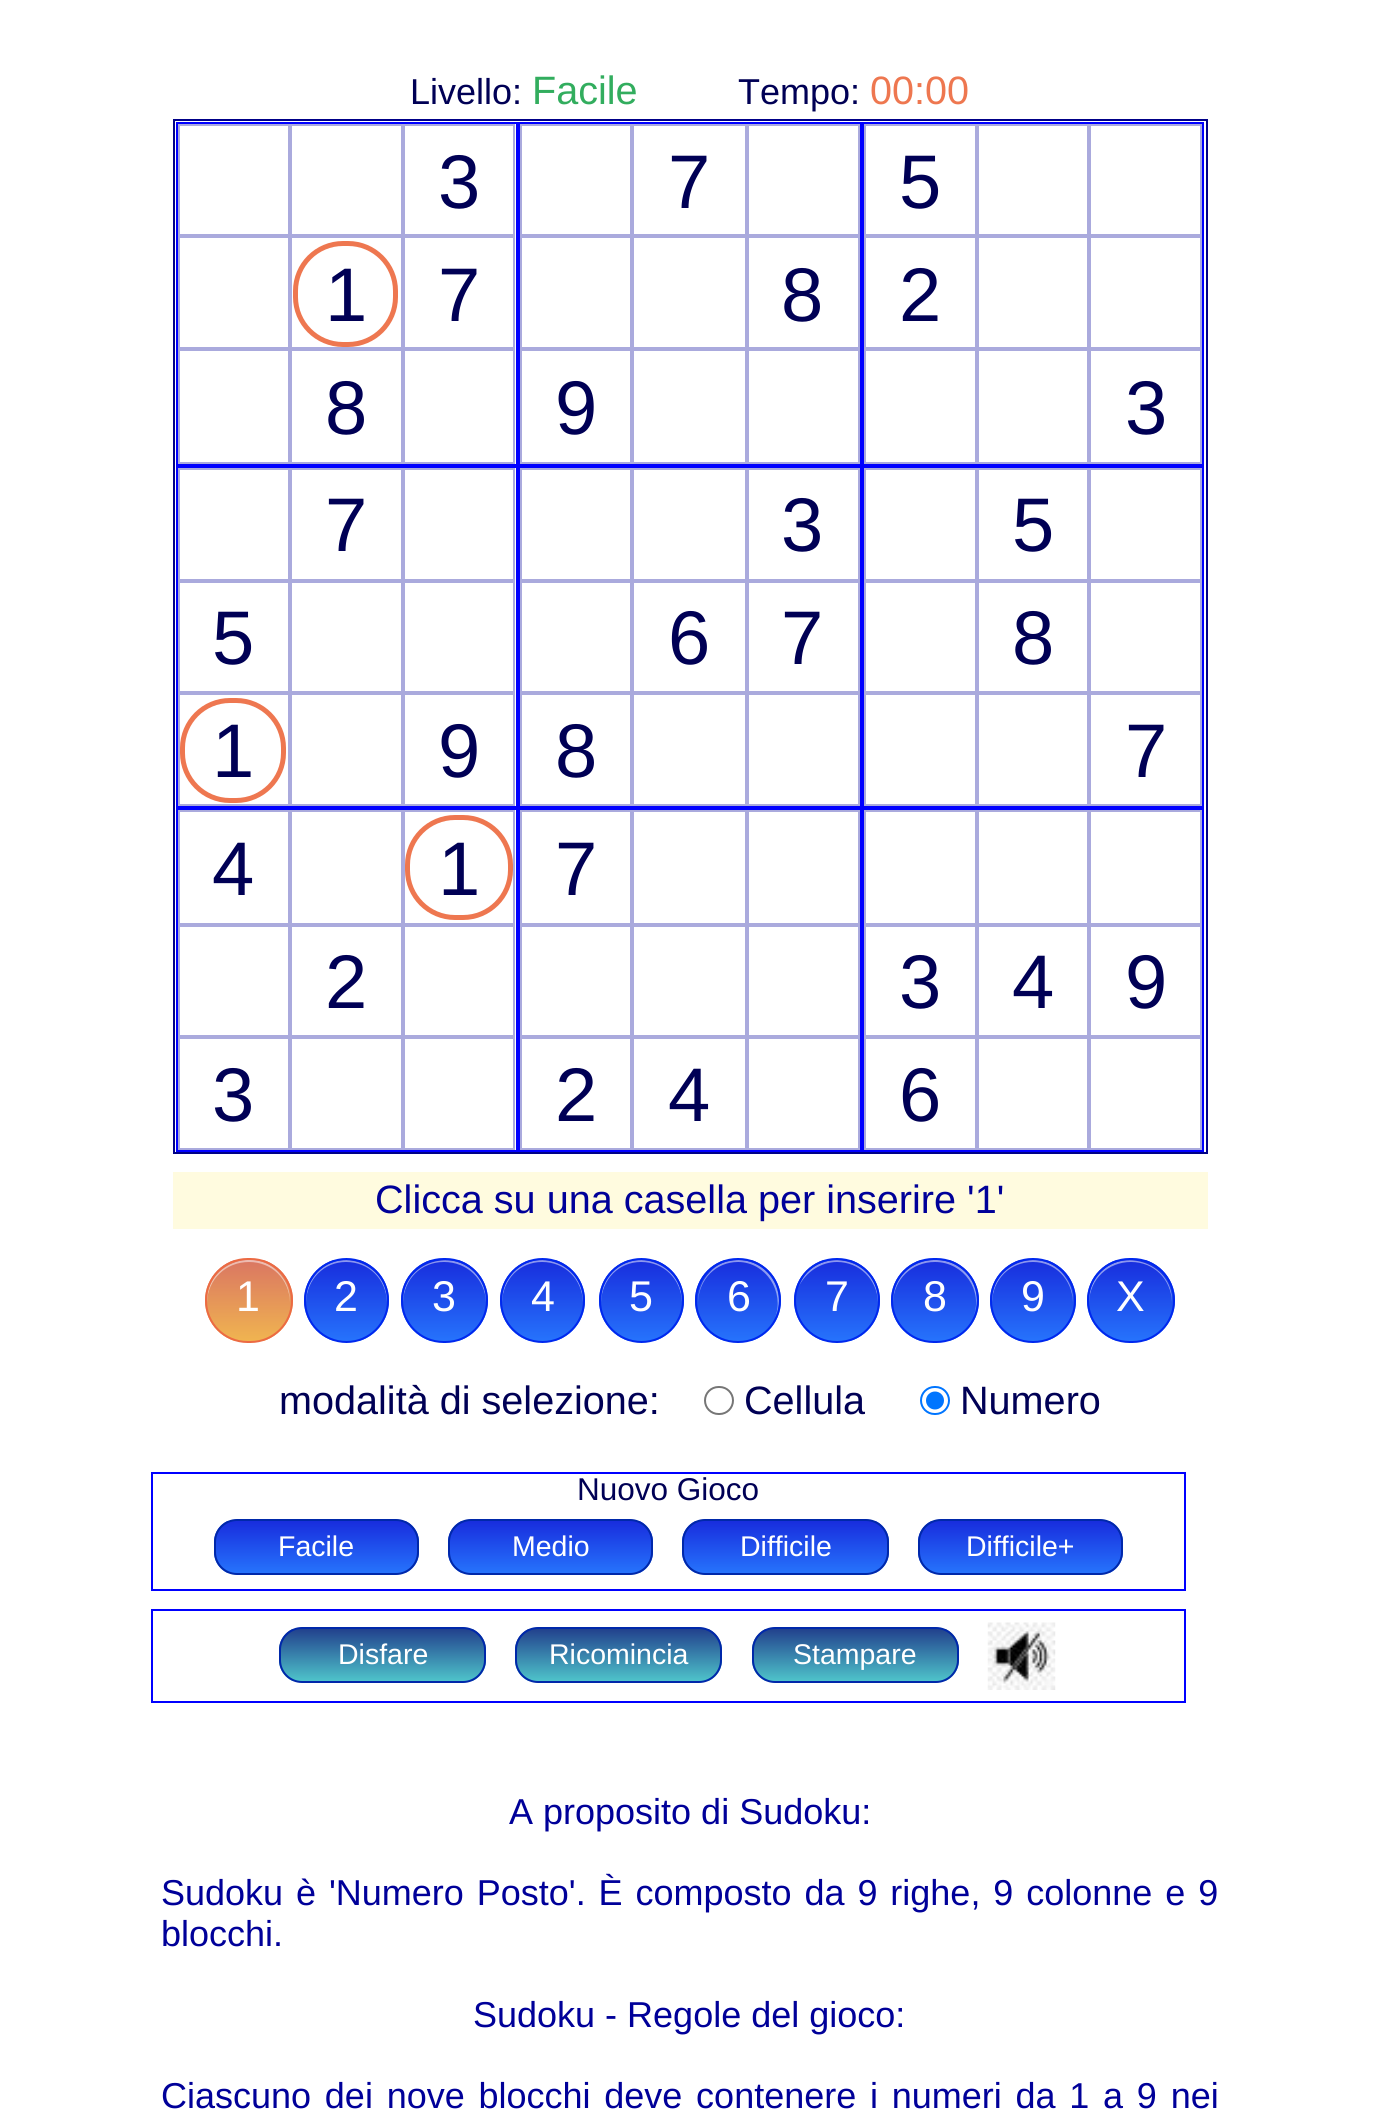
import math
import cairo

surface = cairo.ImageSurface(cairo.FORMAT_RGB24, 1378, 2121)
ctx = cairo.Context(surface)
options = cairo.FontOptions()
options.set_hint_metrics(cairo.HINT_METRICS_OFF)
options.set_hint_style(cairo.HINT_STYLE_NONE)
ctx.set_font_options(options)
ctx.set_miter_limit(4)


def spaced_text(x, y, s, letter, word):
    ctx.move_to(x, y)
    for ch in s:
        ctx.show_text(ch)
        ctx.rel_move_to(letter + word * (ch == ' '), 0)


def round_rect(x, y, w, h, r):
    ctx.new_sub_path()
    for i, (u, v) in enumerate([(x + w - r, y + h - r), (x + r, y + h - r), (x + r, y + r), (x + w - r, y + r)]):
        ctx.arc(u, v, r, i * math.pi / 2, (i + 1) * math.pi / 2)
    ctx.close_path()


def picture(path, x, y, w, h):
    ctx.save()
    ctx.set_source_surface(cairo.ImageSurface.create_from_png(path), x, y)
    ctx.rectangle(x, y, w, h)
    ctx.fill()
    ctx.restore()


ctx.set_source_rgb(1, 1, 1)
ctx.paint()
ctx.select_font_face("Liberation Sans")
ctx.set_font_size(36)
ctx.set_source_rgb(0, 0, 0.333)
ctx.move_to(410, 104)
ctx.show_text("Livello:")
ctx.set_font_size(39.6)
ctx.set_source_rgb(0.196, 0.678, 0.369)
ctx.move_to(532, 104)
ctx.show_text("Facile")
ctx.set_font_size(36)
ctx.set_source_rgb(0, 0, 0.333)
ctx.move_to(738, 104)
ctx.show_text("Tempo:")
ctx.set_font_size(39.6)
ctx.set_source_rgb(0.933, 0.467, 0.314)
ctx.move_to(870, 104)
ctx.show_text("00:00")
ctx.rectangle(174, 120, 1033, 1033)
ctx.set_source_rgb(0, 0, 0.533)
ctx.stroke()
ctx.rectangle(177, 123, 340, 342)
ctx.set_source_rgb(0, 0, 1)
ctx.stroke()
ctx.rectangle(179, 125, 110, 110)
ctx.set_source_rgb(0.667, 0.667, 0.867)
ctx.stroke()
ctx.rectangle(291, 125, 111, 110)
ctx.stroke()
ctx.rectangle(404, 125, 110, 110)
ctx.stroke()
ctx.set_font_size(76)
ctx.set_source_rgb(0, 0, 0.333)
ctx.move_to(438, 208)
ctx.show_text("3")
ctx.rectangle(179, 237, 110, 111)
ctx.set_source_rgb(0.667, 0.667, 0.867)
ctx.stroke()
ctx.rectangle(291, 237, 111, 111)
ctx.stroke()
round_rect(295.5, 243.5, 100, 101, 47.5)
ctx.set_source_rgb(0.933, 0.467, 0.314)
ctx.set_line_width(5)
ctx.stroke()
ctx.set_source_rgb(0, 0, 0.333)
ctx.move_to(325, 321)
ctx.show_text("1")
ctx.rectangle(404, 237, 110, 111)
ctx.set_source_rgb(0.667, 0.667, 0.867)
ctx.set_line_width(2)
ctx.stroke()
ctx.set_source_rgb(0, 0, 0.333)
ctx.move_to(438, 321)
ctx.show_text("7")
ctx.rectangle(179, 350, 110, 113)
ctx.set_source_rgb(0.667, 0.667, 0.867)
ctx.stroke()
ctx.rectangle(291, 350, 111, 113)
ctx.stroke()
ctx.set_source_rgb(0, 0, 0.333)
ctx.move_to(325, 434)
ctx.show_text("8")
ctx.rectangle(404, 350, 110, 113)
ctx.set_source_rgb(0.667, 0.667, 0.867)
ctx.stroke()
ctx.rectangle(519, 123, 342, 342)
ctx.set_source_rgb(0, 0, 1)
ctx.stroke()
ctx.rectangle(521, 125, 110, 110)
ctx.set_source_rgb(0.667, 0.667, 0.867)
ctx.stroke()
ctx.rectangle(633, 125, 113, 110)
ctx.stroke()
ctx.set_source_rgb(0, 0, 0.333)
ctx.move_to(668, 208)
ctx.show_text("7")
ctx.rectangle(748, 125, 111, 110)
ctx.set_source_rgb(0.667, 0.667, 0.867)
ctx.stroke()
ctx.rectangle(521, 237, 110, 111)
ctx.stroke()
ctx.rectangle(633, 237, 113, 111)
ctx.stroke()
ctx.rectangle(748, 237, 111, 111)
ctx.stroke()
ctx.set_source_rgb(0, 0, 0.333)
ctx.move_to(781, 321)
ctx.show_text("8")
ctx.rectangle(521, 350, 110, 113)
ctx.set_source_rgb(0.667, 0.667, 0.867)
ctx.stroke()
ctx.set_source_rgb(0, 0, 0.333)
ctx.move_to(555, 434)
ctx.show_text("9")
ctx.rectangle(633, 350, 113, 113)
ctx.set_source_rgb(0.667, 0.667, 0.867)
ctx.stroke()
ctx.rectangle(748, 350, 111, 113)
ctx.stroke()
ctx.rectangle(863, 123, 340, 342)
ctx.set_source_rgb(0, 0, 1)
ctx.stroke()
ctx.rectangle(865, 125, 111, 110)
ctx.set_source_rgb(0.667, 0.667, 0.867)
ctx.stroke()
ctx.set_source_rgb(0, 0, 0.333)
ctx.move_to(899, 208)
ctx.show_text("5")
ctx.rectangle(978, 125, 110, 110)
ctx.set_source_rgb(0.667, 0.667, 0.867)
ctx.stroke()
ctx.rectangle(1090, 125, 111, 110)
ctx.stroke()
ctx.rectangle(865, 237, 111, 111)
ctx.stroke()
ctx.set_source_rgb(0, 0, 0.333)
ctx.move_to(899, 321)
ctx.show_text("2")
ctx.rectangle(978, 237, 110, 111)
ctx.set_source_rgb(0.667, 0.667, 0.867)
ctx.stroke()
ctx.rectangle(1090, 237, 111, 111)
ctx.stroke()
ctx.rectangle(865, 350, 111, 113)
ctx.stroke()
ctx.rectangle(978, 350, 110, 113)
ctx.stroke()
ctx.rectangle(1090, 350, 111, 113)
ctx.stroke()
ctx.set_source_rgb(0, 0, 0.333)
ctx.move_to(1125, 434)
ctx.show_text("3")
ctx.rectangle(177, 467, 340, 340)
ctx.set_source_rgb(0, 0, 1)
ctx.stroke()
ctx.rectangle(179, 469, 110, 111)
ctx.set_source_rgb(0.667, 0.667, 0.867)
ctx.stroke()
ctx.rectangle(291, 469, 111, 111)
ctx.stroke()
ctx.set_source_rgb(0, 0, 0.333)
ctx.move_to(325, 551)
ctx.show_text("7")
ctx.rectangle(404, 469, 110, 111)
ctx.set_source_rgb(0.667, 0.667, 0.867)
ctx.stroke()
ctx.rectangle(179, 582, 110, 110)
ctx.stroke()
ctx.set_source_rgb(0, 0, 0.333)
ctx.move_to(212, 664)
ctx.show_text("5")
ctx.rectangle(291, 582, 111, 110)
ctx.set_source_rgb(0.667, 0.667, 0.867)
ctx.stroke()
ctx.rectangle(404, 582, 110, 110)
ctx.stroke()
ctx.rectangle(179, 694, 110, 111)
ctx.stroke()
round_rect(182.5, 700.5, 101, 100, 47.5)
ctx.set_source_rgb(0.933, 0.467, 0.314)
ctx.set_line_width(5)
ctx.stroke()
ctx.set_source_rgb(0, 0, 0.333)
ctx.move_to(212, 777)
ctx.show_text("1")
ctx.rectangle(291, 694, 111, 111)
ctx.set_source_rgb(0.667, 0.667, 0.867)
ctx.set_line_width(2)
ctx.stroke()
ctx.rectangle(404, 694, 110, 111)
ctx.stroke()
ctx.set_source_rgb(0, 0, 0.333)
ctx.move_to(438, 777)
ctx.show_text("9")
ctx.rectangle(519, 467, 342, 340)
ctx.set_source_rgb(0, 0, 1)
ctx.stroke()
ctx.rectangle(521, 469, 110, 111)
ctx.set_source_rgb(0.667, 0.667, 0.867)
ctx.stroke()
ctx.rectangle(633, 469, 113, 111)
ctx.stroke()
ctx.rectangle(748, 469, 111, 111)
ctx.stroke()
ctx.set_source_rgb(0, 0, 0.333)
ctx.move_to(781, 551)
ctx.show_text("3")
ctx.rectangle(521, 582, 110, 110)
ctx.set_source_rgb(0.667, 0.667, 0.867)
ctx.stroke()
ctx.rectangle(633, 582, 113, 110)
ctx.stroke()
ctx.set_source_rgb(0, 0, 0.333)
ctx.move_to(668, 664)
ctx.show_text("6")
ctx.rectangle(748, 582, 111, 110)
ctx.set_source_rgb(0.667, 0.667, 0.867)
ctx.stroke()
ctx.set_source_rgb(0, 0, 0.333)
ctx.move_to(781, 664)
ctx.show_text("7")
ctx.rectangle(521, 694, 110, 111)
ctx.set_source_rgb(0.667, 0.667, 0.867)
ctx.stroke()
ctx.set_source_rgb(0, 0, 0.333)
ctx.move_to(555, 777)
ctx.show_text("8")
ctx.rectangle(633, 694, 113, 111)
ctx.set_source_rgb(0.667, 0.667, 0.867)
ctx.stroke()
ctx.rectangle(748, 694, 111, 111)
ctx.stroke()
ctx.rectangle(863, 467, 340, 340)
ctx.set_source_rgb(0, 0, 1)
ctx.stroke()
ctx.rectangle(865, 469, 111, 111)
ctx.set_source_rgb(0.667, 0.667, 0.867)
ctx.stroke()
ctx.rectangle(978, 469, 110, 111)
ctx.stroke()
ctx.set_source_rgb(0, 0, 0.333)
ctx.move_to(1012, 551)
ctx.show_text("5")
ctx.rectangle(1090, 469, 111, 111)
ctx.set_source_rgb(0.667, 0.667, 0.867)
ctx.stroke()
ctx.rectangle(865, 582, 111, 110)
ctx.stroke()
ctx.rectangle(978, 582, 110, 110)
ctx.stroke()
ctx.set_source_rgb(0, 0, 0.333)
ctx.move_to(1012, 664)
ctx.show_text("8")
ctx.rectangle(1090, 582, 111, 110)
ctx.set_source_rgb(0.667, 0.667, 0.867)
ctx.stroke()
ctx.rectangle(865, 694, 111, 111)
ctx.stroke()
ctx.rectangle(978, 694, 110, 111)
ctx.stroke()
ctx.rectangle(1090, 694, 111, 111)
ctx.stroke()
ctx.set_source_rgb(0, 0, 0.333)
ctx.move_to(1125, 777)
ctx.show_text("7")
ctx.rectangle(177, 809, 340, 342)
ctx.set_source_rgb(0, 0, 1)
ctx.stroke()
ctx.rectangle(179, 811, 110, 113)
ctx.set_source_rgb(0.667, 0.667, 0.867)
ctx.stroke()
ctx.set_source_rgb(0, 0, 0.333)
ctx.move_to(212, 895)
ctx.show_text("4")
ctx.rectangle(291, 811, 111, 113)
ctx.set_source_rgb(0.667, 0.667, 0.867)
ctx.stroke()
ctx.rectangle(404, 811, 110, 113)
ctx.stroke()
round_rect(407.5, 817.5, 103, 100, 47.5)
ctx.set_source_rgb(0.933, 0.467, 0.314)
ctx.set_line_width(5)
ctx.stroke()
ctx.set_source_rgb(0, 0, 0.333)
ctx.move_to(438, 895)
ctx.show_text("1")
ctx.rectangle(179, 926, 110, 110)
ctx.set_source_rgb(0.667, 0.667, 0.867)
ctx.set_line_width(2)
ctx.stroke()
ctx.rectangle(291, 926, 111, 110)
ctx.stroke()
ctx.set_source_rgb(0, 0, 0.333)
ctx.move_to(325, 1008)
ctx.show_text("2")
ctx.rectangle(404, 926, 110, 110)
ctx.set_source_rgb(0.667, 0.667, 0.867)
ctx.stroke()
ctx.rectangle(179, 1038, 110, 111)
ctx.stroke()
ctx.set_source_rgb(0, 0, 0.333)
ctx.move_to(212, 1121)
ctx.show_text("3")
ctx.rectangle(291, 1038, 111, 111)
ctx.set_source_rgb(0.667, 0.667, 0.867)
ctx.stroke()
ctx.rectangle(404, 1038, 110, 111)
ctx.stroke()
ctx.rectangle(519, 809, 342, 342)
ctx.set_source_rgb(0, 0, 1)
ctx.stroke()
ctx.rectangle(521, 811, 110, 113)
ctx.set_source_rgb(0.667, 0.667, 0.867)
ctx.stroke()
ctx.set_source_rgb(0, 0, 0.333)
ctx.move_to(555, 895)
ctx.show_text("7")
ctx.rectangle(633, 811, 113, 113)
ctx.set_source_rgb(0.667, 0.667, 0.867)
ctx.stroke()
ctx.rectangle(748, 811, 111, 113)
ctx.stroke()
ctx.rectangle(521, 926, 110, 110)
ctx.stroke()
ctx.rectangle(633, 926, 113, 110)
ctx.stroke()
ctx.rectangle(748, 926, 111, 110)
ctx.stroke()
ctx.rectangle(521, 1038, 110, 111)
ctx.stroke()
ctx.set_source_rgb(0, 0, 0.333)
ctx.move_to(555, 1121)
ctx.show_text("2")
ctx.rectangle(633, 1038, 113, 111)
ctx.set_source_rgb(0.667, 0.667, 0.867)
ctx.stroke()
ctx.set_source_rgb(0, 0, 0.333)
ctx.move_to(668, 1121)
ctx.show_text("4")
ctx.rectangle(748, 1038, 111, 111)
ctx.set_source_rgb(0.667, 0.667, 0.867)
ctx.stroke()
ctx.rectangle(863, 809, 340, 342)
ctx.set_source_rgb(0, 0, 1)
ctx.stroke()
ctx.rectangle(865, 811, 111, 113)
ctx.set_source_rgb(0.667, 0.667, 0.867)
ctx.stroke()
ctx.rectangle(978, 811, 110, 113)
ctx.stroke()
ctx.rectangle(1090, 811, 111, 113)
ctx.stroke()
ctx.rectangle(865, 926, 111, 110)
ctx.stroke()
ctx.set_source_rgb(0, 0, 0.333)
ctx.move_to(899, 1008)
ctx.show_text("3")
ctx.rectangle(978, 926, 110, 110)
ctx.set_source_rgb(0.667, 0.667, 0.867)
ctx.stroke()
ctx.set_source_rgb(0, 0, 0.333)
ctx.move_to(1012, 1008)
ctx.show_text("4")
ctx.rectangle(1090, 926, 111, 110)
ctx.set_source_rgb(0.667, 0.667, 0.867)
ctx.stroke()
ctx.set_source_rgb(0, 0, 0.333)
ctx.move_to(1125, 1008)
ctx.show_text("9")
ctx.rectangle(865, 1038, 111, 111)
ctx.set_source_rgb(0.667, 0.667, 0.867)
ctx.stroke()
ctx.set_source_rgb(0, 0, 0.333)
ctx.move_to(899, 1121)
ctx.show_text("6")
ctx.rectangle(978, 1038, 110, 111)
ctx.set_source_rgb(0.667, 0.667, 0.867)
ctx.stroke()
ctx.rectangle(1090, 1038, 111, 111)
ctx.stroke()
ctx.set_source_rgb(1, 0.984, 0.875)
ctx.rectangle(173, 1172, 1035, 57)
ctx.fill()
ctx.set_font_size(39.6)
ctx.set_source_rgb(0, 0, 0.6)
ctx.move_to(375, 1213)
ctx.show_text("Clicca su una casella per inserire '1'")
ctx.save()
round_rect(205, 1258, 88, 85, 42.5)
ctx.clip()
gradient = cairo.LinearGradient(249, 1260, 249, 1341)
gradient.add_color_stop_rgba(0, 0.855, 0.463, 0.384, 1)
gradient.add_color_stop_rgba(1, 0.941, 0.706, 0.314, 1)
ctx.set_source(gradient)
ctx.rectangle(205, 1260, 88, 81)
ctx.fill()
ctx.restore()
ctx.set_source_rgba(1, 1, 1, 0.5)
ctx.new_path()
ctx.move_to(249, 1262)
ctx.curve_to(272, 1262, 289, 1279, 290, 1302)
ctx.curve_to(290, 1293, 288, 1285, 283, 1278)
ctx.curve_to(261, 1244, 206, 1261, 207, 1302)
ctx.curve_to(208, 1279, 226, 1262, 249, 1262)
ctx.close_path()
ctx.fill()
round_rect(206, 1259, 86, 83, 41.5)
ctx.set_source_rgb(0.922, 0.416, 0.263)
ctx.stroke()
ctx.set_font_size(43)
ctx.set_source_rgb(1, 1, 1)
ctx.move_to(236, 1311)
ctx.show_text("1")
ctx.save()
round_rect(304, 1258, 85, 85, 42.5)
ctx.clip()
gradient = cairo.LinearGradient(347, 1260, 347, 1341)
gradient.add_color_stop_rgba(0, 0.094, 0.176, 0.867, 1)
gradient.add_color_stop_rgba(1, 0.149, 0.451, 0.988, 1)
ctx.set_source(gradient)
ctx.rectangle(304, 1260, 85, 81)
ctx.fill()
ctx.restore()
ctx.set_source_rgba(1, 1, 1, 0.5)
ctx.new_path()
ctx.move_to(346, 1262)
ctx.curve_to(369, 1262, 386, 1279, 387, 1302)
ctx.curve_to(388, 1262, 335, 1244, 313, 1278)
ctx.curve_to(308, 1285, 306, 1293, 306, 1302)
ctx.curve_to(307, 1279, 324, 1262, 346, 1262)
ctx.close_path()
ctx.fill()
ctx.arc(346.5, 1300.5, 41.5, 0, 2 * math.pi)
ctx.set_source_rgb(0, 0.157, 0.933)
ctx.stroke()
ctx.set_source_rgb(1, 1, 1)
ctx.move_to(334, 1311)
ctx.show_text("2")
ctx.save()
round_rect(401, 1258, 87, 85, 42.5)
ctx.clip()
gradient = cairo.LinearGradient(444, 1260, 444, 1341)
gradient.add_color_stop_rgba(0, 0.094, 0.176, 0.867, 1)
gradient.add_color_stop_rgba(1, 0.149, 0.451, 0.988, 1)
ctx.set_source(gradient)
ctx.rectangle(401, 1260, 87, 81)
ctx.fill()
ctx.restore()
ctx.set_source_rgba(1, 1, 1, 0.5)
ctx.new_path()
ctx.move_to(444, 1262)
ctx.curve_to(467, 1262, 485, 1279, 486, 1302)
ctx.curve_to(486, 1293, 484, 1285, 479, 1278)
ctx.curve_to(457, 1245, 402, 1261, 403, 1302)
ctx.curve_to(404, 1279, 421, 1262, 444, 1262)
ctx.close_path()
ctx.fill()
round_rect(402, 1259, 85, 83, 41.5)
ctx.set_source_rgb(0, 0.157, 0.933)
ctx.stroke()
ctx.set_source_rgb(1, 1, 1)
ctx.move_to(432, 1311)
ctx.show_text("3")
ctx.save()
round_rect(500, 1258, 85, 85, 42.5)
ctx.clip()
gradient = cairo.LinearGradient(542, 1260, 542, 1341)
gradient.add_color_stop_rgba(0, 0.094, 0.176, 0.867, 1)
gradient.add_color_stop_rgba(1, 0.149, 0.451, 0.988, 1)
ctx.set_source(gradient)
ctx.rectangle(500, 1260, 85, 81)
ctx.fill()
ctx.restore()
ctx.set_source_rgba(1, 1, 1, 0.5)
ctx.new_path()
ctx.move_to(542, 1262)
ctx.curve_to(565, 1262, 582, 1279, 583, 1302)
ctx.curve_to(584, 1262, 531, 1244, 509, 1278)
ctx.curve_to(504, 1285, 502, 1293, 502, 1302)
ctx.curve_to(503, 1279, 520, 1262, 542, 1262)
ctx.close_path()
ctx.fill()
ctx.arc(542.5, 1300.5, 41.5, 0, 2 * math.pi)
ctx.set_source_rgb(0, 0.157, 0.933)
ctx.stroke()
ctx.set_source_rgb(1, 1, 1)
ctx.move_to(531, 1311)
ctx.show_text("4")
ctx.save()
round_rect(599, 1258, 85, 85, 42.5)
ctx.clip()
gradient = cairo.LinearGradient(641, 1260, 641, 1341)
gradient.add_color_stop_rgba(0, 0.094, 0.176, 0.867, 1)
gradient.add_color_stop_rgba(1, 0.149, 0.451, 0.988, 1)
ctx.set_source(gradient)
ctx.rectangle(599, 1260, 85, 81)
ctx.fill()
ctx.restore()
ctx.set_source_rgba(1, 1, 1, 0.5)
ctx.new_path()
ctx.move_to(641, 1262)
ctx.curve_to(664, 1262, 681, 1279, 682, 1302)
ctx.curve_to(683, 1262, 630, 1244, 608, 1278)
ctx.curve_to(603, 1285, 601, 1293, 601, 1302)
ctx.curve_to(602, 1279, 619, 1262, 641, 1262)
ctx.close_path()
ctx.fill()
ctx.arc(641.5, 1300.5, 41.5, 0, 2 * math.pi)
ctx.set_source_rgb(0, 0.157, 0.933)
ctx.stroke()
ctx.set_source_rgb(1, 1, 1)
ctx.move_to(629, 1311)
ctx.show_text("5")
ctx.save()
round_rect(695, 1258, 86, 85, 42.5)
ctx.clip()
gradient = cairo.LinearGradient(738, 1260, 738, 1341)
gradient.add_color_stop_rgba(0, 0.094, 0.176, 0.867, 1)
gradient.add_color_stop_rgba(1, 0.149, 0.451, 0.988, 1)
ctx.set_source(gradient)
ctx.rectangle(695, 1260, 86, 81)
ctx.fill()
ctx.restore()
ctx.set_source_rgba(1, 1, 1, 0.5)
ctx.new_path()
ctx.move_to(738, 1262)
ctx.curve_to(766, 1262, 785, 1292, 775, 1318)
ctx.curve_to(789, 1288, 763, 1254, 730, 1261)
ctx.curve_to(723, 1262, 715, 1266, 710, 1272)
ctx.curve_to(702, 1280, 698, 1291, 698, 1302)
ctx.curve_to(699, 1279, 716, 1262, 738, 1262)
ctx.close_path()
ctx.fill()
round_rect(696, 1259, 84, 83, 41.5)
ctx.set_source_rgb(0, 0.157, 0.933)
ctx.stroke()
ctx.set_source_rgb(1, 1, 1)
ctx.move_to(727, 1311)
ctx.show_text("6")
ctx.save()
round_rect(794, 1258, 86, 85, 42.5)
ctx.clip()
gradient = cairo.LinearGradient(837, 1260, 837, 1341)
gradient.add_color_stop_rgba(0, 0.094, 0.176, 0.867, 1)
gradient.add_color_stop_rgba(1, 0.149, 0.451, 0.988, 1)
ctx.set_source(gradient)
ctx.rectangle(794, 1260, 86, 81)
ctx.fill()
ctx.restore()
ctx.set_source_rgba(1, 1, 1, 0.5)
ctx.new_path()
ctx.move_to(837, 1262)
ctx.curve_to(859, 1262, 877, 1279, 878, 1302)
ctx.curve_to(879, 1256, 815, 1244, 799, 1286)
ctx.curve_to(806, 1272, 821, 1262, 837, 1262)
ctx.close_path()
ctx.fill()
round_rect(795, 1259, 84, 83, 41.5)
ctx.set_source_rgb(0, 0.157, 0.933)
ctx.stroke()
ctx.set_source_rgb(1, 1, 1)
ctx.move_to(825, 1311)
ctx.show_text("7")
ctx.save()
round_rect(891, 1258, 88, 85, 42.5)
ctx.clip()
gradient = cairo.LinearGradient(935, 1260, 935, 1341)
gradient.add_color_stop_rgba(0, 0.094, 0.176, 0.867, 1)
gradient.add_color_stop_rgba(1, 0.149, 0.451, 0.988, 1)
ctx.set_source(gradient)
ctx.rectangle(891, 1260, 88, 81)
ctx.fill()
ctx.restore()
ctx.set_source_rgba(1, 1, 1, 0.5)
ctx.new_path()
ctx.move_to(935, 1262)
ctx.curve_to(964, 1262, 984, 1291, 973, 1318)
ctx.curve_to(981, 1300, 976, 1278, 959, 1267)
ctx.curve_to(943, 1256, 919, 1258, 905, 1272)
ctx.curve_to(897, 1280, 893, 1291, 893, 1302)
ctx.curve_to(894, 1279, 912, 1262, 935, 1262)
ctx.close_path()
ctx.fill()
round_rect(892, 1259, 86, 83, 41.5)
ctx.set_source_rgb(0, 0.157, 0.933)
ctx.stroke()
ctx.set_source_rgb(1, 1, 1)
ctx.move_to(923, 1311)
ctx.show_text("8")
ctx.save()
round_rect(990, 1258, 86, 85, 42.5)
ctx.clip()
gradient = cairo.LinearGradient(1033, 1260, 1033, 1341)
gradient.add_color_stop_rgba(0, 0.094, 0.176, 0.867, 1)
gradient.add_color_stop_rgba(1, 0.149, 0.451, 0.988, 1)
ctx.set_source(gradient)
ctx.rectangle(990, 1260, 86, 81)
ctx.fill()
ctx.restore()
ctx.set_source_rgba(1, 1, 1, 0.5)
ctx.new_path()
ctx.move_to(1033, 1262)
ctx.curve_to(1055, 1262, 1072, 1279, 1073, 1302)
ctx.curve_to(1073, 1293, 1071, 1285, 1066, 1278)
ctx.curve_to(1044, 1244, 991, 1262, 992, 1302)
ctx.curve_to(993, 1279, 1010, 1262, 1033, 1262)
ctx.close_path()
ctx.fill()
round_rect(991, 1259, 84, 83, 41.5)
ctx.set_source_rgb(0, 0.157, 0.933)
ctx.stroke()
ctx.set_source_rgb(1, 1, 1)
ctx.move_to(1021, 1311)
ctx.show_text("9")
ctx.save()
round_rect(1087, 1258, 88, 85, 42.5)
ctx.clip()
gradient = cairo.LinearGradient(1131, 1260, 1131, 1341)
gradient.add_color_stop_rgba(0, 0.094, 0.176, 0.867, 1)
gradient.add_color_stop_rgba(1, 0.149, 0.451, 0.988, 1)
ctx.set_source(gradient)
ctx.rectangle(1087, 1260, 88, 81)
ctx.fill()
ctx.restore()
ctx.set_source_rgba(1, 1, 1, 0.5)
ctx.new_path()
ctx.move_to(1131, 1262)
ctx.curve_to(1154, 1262, 1171, 1279, 1172, 1302)
ctx.curve_to(1173, 1261, 1118, 1245, 1096, 1278)
ctx.curve_to(1091, 1285, 1089, 1293, 1089, 1302)
ctx.curve_to(1090, 1279, 1108, 1262, 1131, 1262)
ctx.close_path()
ctx.fill()
round_rect(1088, 1259, 86, 83, 41.5)
ctx.set_source_rgb(0, 0.157, 0.933)
ctx.stroke()
ctx.set_source_rgb(1, 1, 1)
ctx.move_to(1116, 1311)
ctx.show_text("X")
ctx.set_font_size(39.6)
ctx.set_source_rgb(0, 0, 0.333)
ctx.move_to(279, 1414)
ctx.show_text("modalità di selezione:")
round_rect(705, 1387, 28, 27, 13.5)
ctx.set_source_rgb(0.463, 0.463, 0.463)
ctx.stroke()
ctx.set_source_rgb(0, 0, 0.333)
ctx.move_to(744, 1414)
ctx.show_text("Cellula")
round_rect(921, 1387, 28, 27, 13.5)
ctx.set_source_rgb(0, 0.459, 1)
ctx.stroke()
ctx.arc(935, 1400.5, 9, 0, 2 * math.pi)
ctx.fill()
ctx.set_source_rgb(0, 0, 0.333)
ctx.move_to(960, 1414)
ctx.show_text("Numero")
ctx.rectangle(152, 1473, 1033, 117)
ctx.set_source_rgb(0, 0, 1)
ctx.stroke()
ctx.set_font_size(31.5)
ctx.set_source_rgb(0, 0, 0.333)
ctx.move_to(577, 1500)
ctx.show_text("Nuovo Gioco")
ctx.save()
round_rect(214, 1519, 205, 56, 23)
ctx.clip()
gradient = cairo.LinearGradient(316, 1521, 316, 1573)
gradient.add_color_stop_rgba(0, 0.094, 0.176, 0.867, 1)
gradient.add_color_stop_rgba(1, 0.149, 0.451, 0.988, 1)
ctx.set_source(gradient)
ctx.rectangle(214, 1521, 205, 52)
ctx.fill()
ctx.restore()
round_rect(215, 1520, 203, 54, 22)
ctx.set_source_rgb(0, 0.157, 0.667)
ctx.stroke()
ctx.set_font_size(28.5)
ctx.set_source_rgb(1, 1, 1)
ctx.move_to(278, 1556)
ctx.show_text("Facile")
ctx.save()
round_rect(448, 1519, 205, 56, 23)
ctx.clip()
gradient = cairo.LinearGradient(550, 1521, 550, 1573)
gradient.add_color_stop_rgba(0, 0.094, 0.176, 0.867, 1)
gradient.add_color_stop_rgba(1, 0.149, 0.451, 0.988, 1)
ctx.set_source(gradient)
ctx.rectangle(448, 1521, 205, 52)
ctx.fill()
ctx.restore()
round_rect(449, 1520, 203, 54, 22)
ctx.set_source_rgb(0, 0.157, 0.667)
ctx.stroke()
ctx.set_source_rgb(1, 1, 1)
ctx.move_to(512, 1556)
ctx.show_text("Medio")
ctx.save()
round_rect(682, 1519, 207, 56, 23)
ctx.clip()
gradient = cairo.LinearGradient(785, 1521, 785, 1573)
gradient.add_color_stop_rgba(0, 0.094, 0.176, 0.867, 1)
gradient.add_color_stop_rgba(1, 0.149, 0.451, 0.988, 1)
ctx.set_source(gradient)
ctx.rectangle(682, 1521, 207, 52)
ctx.fill()
ctx.restore()
round_rect(683, 1520, 205, 54, 22)
ctx.set_source_rgb(0, 0.157, 0.667)
ctx.stroke()
ctx.set_source_rgb(1, 1, 1)
ctx.move_to(740, 1556)
ctx.show_text("Difficile")
ctx.save()
round_rect(918, 1519, 205, 56, 23)
ctx.clip()
gradient = cairo.LinearGradient(1020, 1521, 1020, 1573)
gradient.add_color_stop_rgba(0, 0.094, 0.176, 0.867, 1)
gradient.add_color_stop_rgba(1, 0.149, 0.451, 0.988, 1)
ctx.set_source(gradient)
ctx.rectangle(918, 1521, 205, 52)
ctx.fill()
ctx.restore()
round_rect(919, 1520, 203, 54, 22)
ctx.set_source_rgb(0, 0.157, 0.667)
ctx.stroke()
ctx.set_source_rgb(1, 1, 1)
ctx.move_to(966, 1556)
ctx.show_text("Difficile+")
ctx.rectangle(152, 1610, 1033, 92)
ctx.set_source_rgb(0, 0, 1)
ctx.stroke()
ctx.save()
round_rect(279, 1627, 207, 56, 23)
ctx.clip()
gradient = cairo.LinearGradient(383, 1629, 383, 1681)
gradient.add_color_stop_rgba(0, 0.133, 0.255, 0.553, 1)
gradient.add_color_stop_rgba(1, 0.306, 0.765, 0.792, 1)
ctx.set_source(gradient)
ctx.rectangle(279, 1629, 207, 52)
ctx.fill()
ctx.restore()
round_rect(280, 1628, 205, 54, 22)
ctx.set_source_rgb(0, 0.157, 0.667)
ctx.stroke()
ctx.set_source_rgb(1, 1, 1)
ctx.move_to(338, 1664)
ctx.show_text("Disfare")
ctx.save()
round_rect(515, 1627, 207, 56, 23)
ctx.clip()
gradient = cairo.LinearGradient(619, 1629, 619, 1681)
gradient.add_color_stop_rgba(0, 0.133, 0.255, 0.553, 1)
gradient.add_color_stop_rgba(1, 0.306, 0.765, 0.792, 1)
ctx.set_source(gradient)
ctx.rectangle(515, 1629, 207, 52)
ctx.fill()
ctx.restore()
round_rect(516, 1628, 205, 54, 22)
ctx.set_source_rgb(0, 0.157, 0.667)
ctx.stroke()
ctx.set_source_rgb(1, 1, 1)
ctx.move_to(549, 1664)
ctx.show_text("Ricomincia")
ctx.save()
round_rect(752, 1627, 207, 56, 23)
ctx.clip()
gradient = cairo.LinearGradient(855, 1629, 855, 1681)
gradient.add_color_stop_rgba(0, 0.133, 0.255, 0.553, 1)
gradient.add_color_stop_rgba(1, 0.306, 0.765, 0.792, 1)
ctx.set_source(gradient)
ctx.rectangle(752, 1629, 207, 52)
ctx.fill()
ctx.restore()
round_rect(753, 1628, 205, 54, 22)
ctx.set_source_rgb(0, 0.157, 0.667)
ctx.stroke()
ctx.set_source_rgb(1, 1, 1)
ctx.move_to(793, 1664)
ctx.show_text("Stampare")
picture("img1.png", 987, 1622, 69, 68)
ctx.set_font_size(36)
ctx.set_source_rgb(0, 0, 0.6)
ctx.move_to(509, 1824)
ctx.show_text("A proposito di Sudoku:")
spaced_text(161, 1905, "Sudoku è 'Numero Posto'. È composto da 9 righe, 9 colonne e 9", 0, 2.9)
ctx.move_to(161, 1946)
ctx.show_text("blocchi.")
ctx.move_to(473, 2027)
ctx.show_text("Sudoku - Regole del gioco:")
spaced_text(161, 2108, "Ciascuno dei nove blocchi deve contenere i numeri da 1 a 9 nei", 0, 3.75)
surface.write_to_png("page.png")
